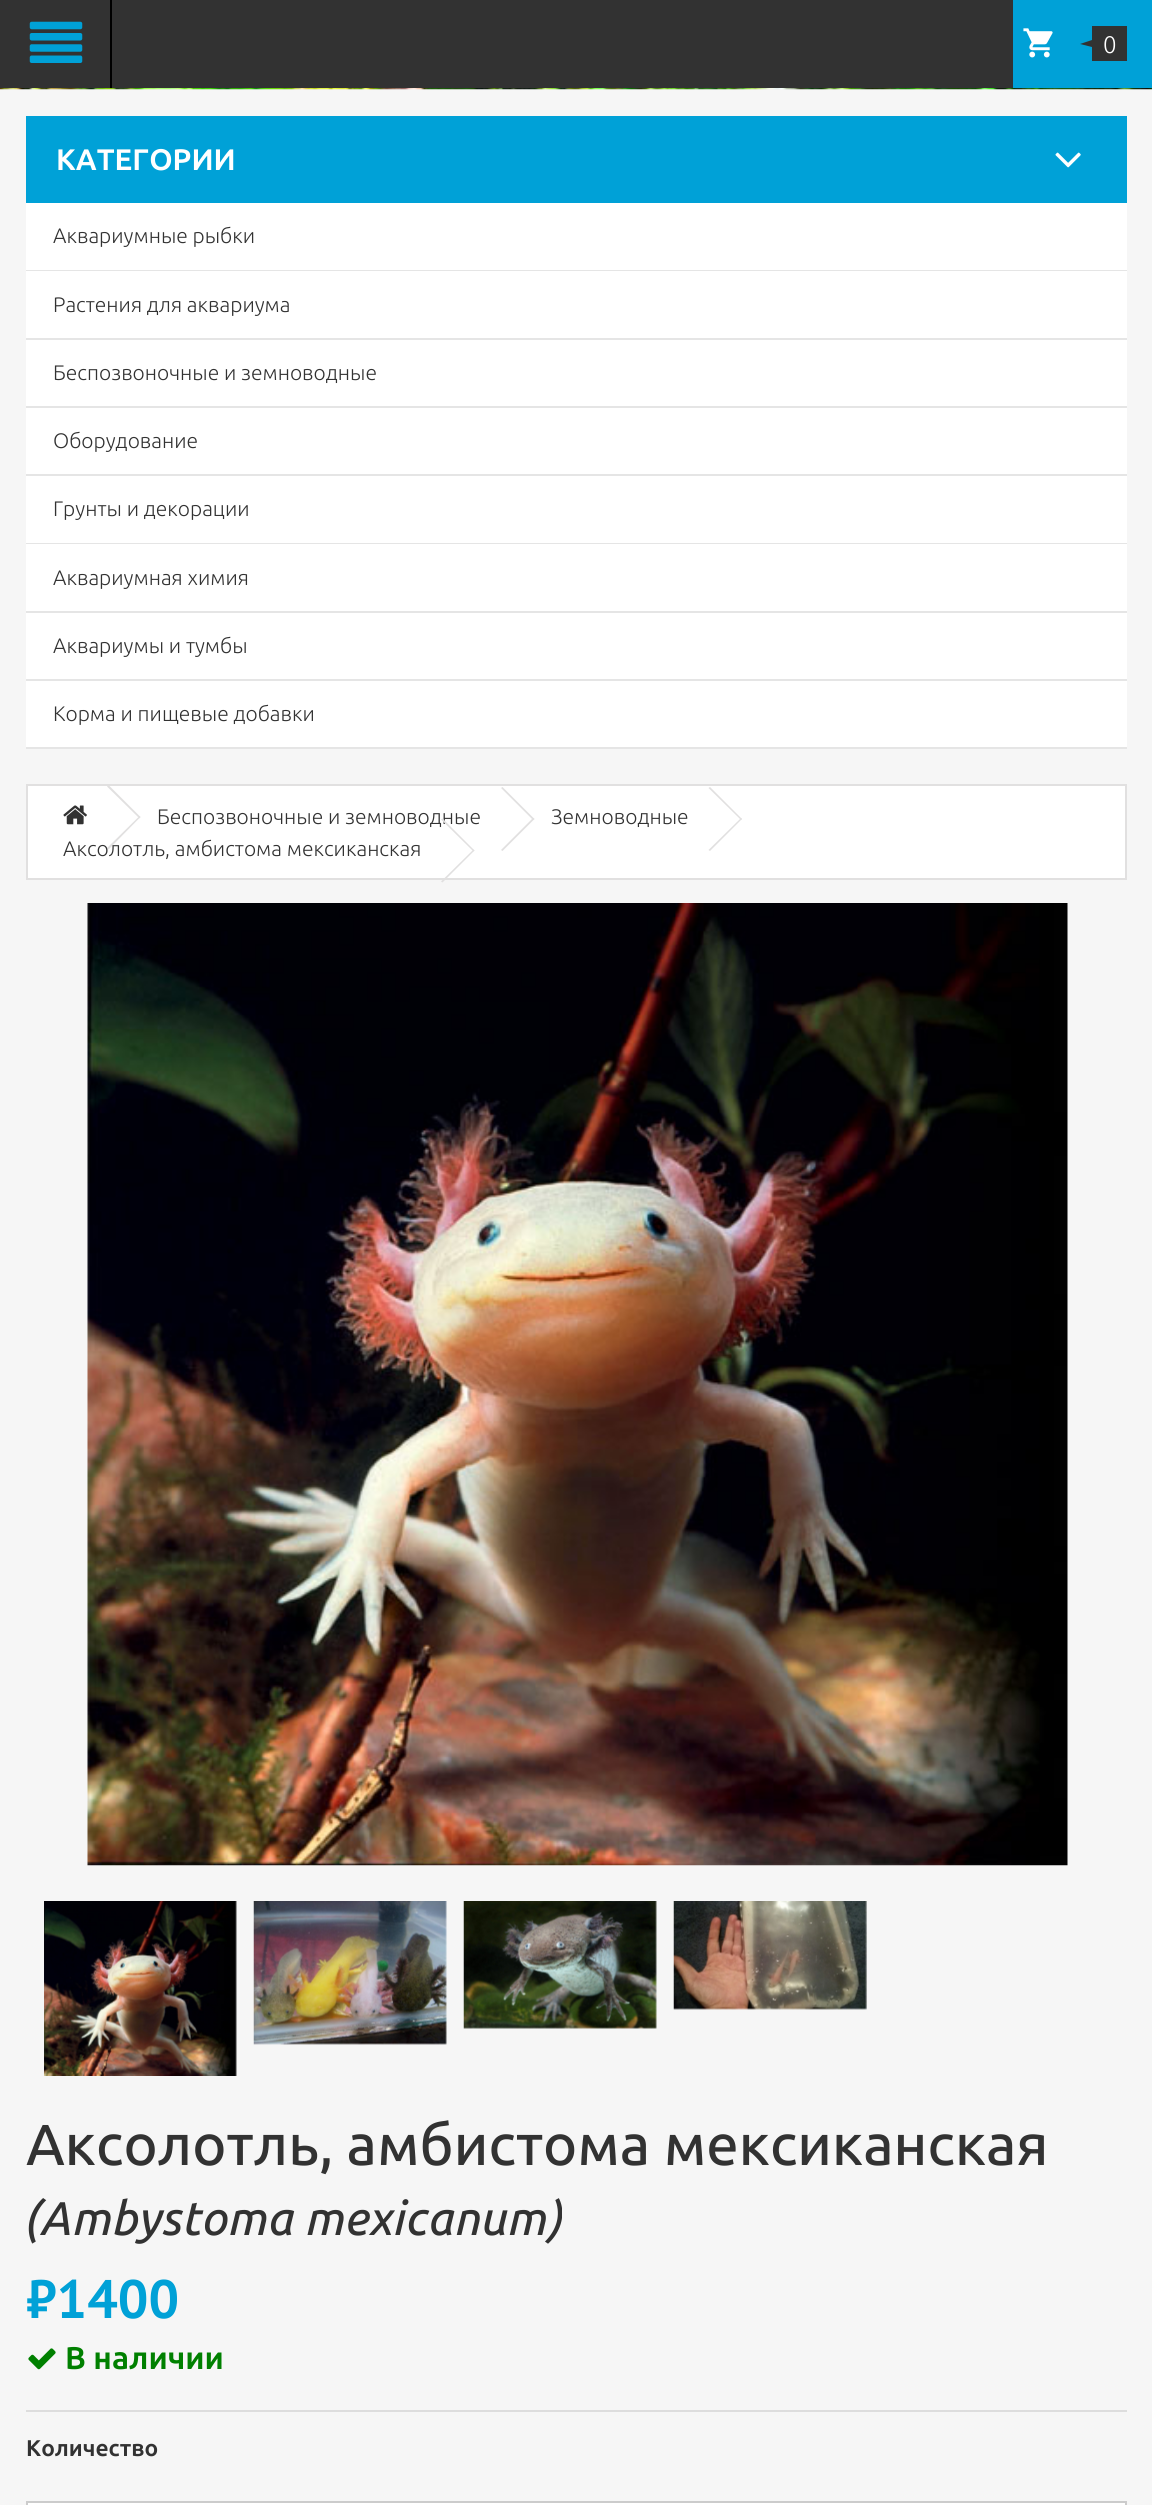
import math
import cairo

surface = cairo.ImageSurface(cairo.FORMAT_RGB24, 1152, 2505)
ctx = cairo.Context(surface)
options = cairo.FontOptions()
options.set_hint_metrics(cairo.HINT_METRICS_OFF)
options.set_hint_style(cairo.HINT_STYLE_NONE)
ctx.set_font_options(options)
ctx.set_miter_limit(4)


def picture(path, x, y, w, h):
    ctx.save()
    ctx.set_source_surface(cairo.ImageSurface.create_from_png(path), x, y)
    ctx.rectangle(x, y, w, h)
    ctx.fill()
    ctx.restore()


ctx.set_source_rgb(0.961, 0.961, 0.961)
ctx.paint()
ctx.set_source_rgb(0.196, 0.196, 0.196)
ctx.rectangle(0, 0, 1013, 88)
ctx.fill()
ctx.set_source_rgb(0, 0, 0)
ctx.rectangle(110, 0, 2, 88)
ctx.fill()
picture("img1.png", 29, 21, 54, 42)
picture("img2.png", 0, 88, 1152, 2)
ctx.set_source_rgb(0, 0.631, 0.843)
ctx.rectangle(1013, 0, 139, 88)
ctx.fill()
picture("img3.png", 1023, 28, 30, 30)
ctx.set_source_rgb(0.196, 0.196, 0.196)
ctx.rectangle(1092, 26, 35, 35)
ctx.fill()
ctx.new_path()
ctx.move_to(1092, 40)
ctx.line_to(1092, 47)
ctx.line_to(1080, 44)
ctx.close_path()
ctx.fill()
ctx.select_font_face("Ubuntu Light")
ctx.set_font_size(24)
ctx.set_source_rgb(1, 1, 1)
ctx.move_to(1103, 53)
ctx.show_text("0")
ctx.set_source_rgb(0, 0.631, 0.843)
ctx.rectangle(26, 116, 1101, 87)
ctx.fill()
ctx.select_font_face("Ubuntu", cairo.FONT_SLANT_NORMAL, cairo.FONT_WEIGHT_BOLD)
ctx.set_font_size(29.75)
ctx.set_source_rgb(1, 1, 1)
ctx.move_to(56, 170)
ctx.show_text("КАТЕГОРИИ")
picture("img4.png", 1055, 152, 26, 16)
ctx.rectangle(26, 203, 1101, 67)
ctx.fill()
ctx.set_source_rgb(0.898, 0.898, 0.898)
ctx.rectangle(26, 270, 1101, 1)
ctx.fill()
ctx.select_font_face("Ubuntu Light")
ctx.set_font_size(21)
ctx.set_source_rgb(0.196, 0.196, 0.196)
ctx.move_to(53, 243)
ctx.show_text("Аквариумные рыбки")
ctx.set_source_rgb(1, 1, 1)
ctx.rectangle(26, 271, 1101, 67)
ctx.fill()
ctx.set_source_rgb(0.898, 0.898, 0.898)
ctx.rectangle(26, 338, 1101, 2)
ctx.fill()
ctx.set_source_rgb(0.196, 0.196, 0.196)
ctx.move_to(53, 312)
ctx.show_text("Растения для аквариума")
ctx.set_source_rgb(1, 1, 1)
ctx.rectangle(26, 340, 1101, 66)
ctx.fill()
ctx.set_source_rgb(0.898, 0.898, 0.898)
ctx.rectangle(26, 406, 1101, 2)
ctx.fill()
ctx.set_source_rgb(0.196, 0.196, 0.196)
ctx.move_to(53, 380)
ctx.show_text("Беспозвоночные и земноводные")
ctx.set_source_rgb(1, 1, 1)
ctx.rectangle(26, 408, 1101, 66)
ctx.fill()
ctx.set_source_rgb(0.898, 0.898, 0.898)
ctx.rectangle(26, 474, 1101, 2)
ctx.fill()
ctx.set_source_rgb(0.196, 0.196, 0.196)
ctx.move_to(53, 448)
ctx.show_text("Оборудование")
ctx.set_source_rgb(1, 1, 1)
ctx.rectangle(26, 476, 1101, 67)
ctx.fill()
ctx.set_source_rgb(0.898, 0.898, 0.898)
ctx.rectangle(26, 543, 1101, 1)
ctx.fill()
ctx.set_source_rgb(0.196, 0.196, 0.196)
ctx.move_to(53, 516)
ctx.show_text("Грунты и декорации")
ctx.set_source_rgb(1, 1, 1)
ctx.rectangle(26, 544, 1101, 67)
ctx.fill()
ctx.set_source_rgb(0.898, 0.898, 0.898)
ctx.rectangle(26, 611, 1101, 2)
ctx.fill()
ctx.set_source_rgb(0.196, 0.196, 0.196)
ctx.move_to(53, 585)
ctx.show_text("Аквариумная химия")
ctx.set_source_rgb(1, 1, 1)
ctx.rectangle(26, 613, 1101, 66)
ctx.fill()
ctx.set_source_rgb(0.898, 0.898, 0.898)
ctx.rectangle(26, 679, 1101, 2)
ctx.fill()
ctx.set_source_rgb(0.196, 0.196, 0.196)
ctx.move_to(53, 653)
ctx.show_text("Аквариумы и тумбы")
ctx.set_source_rgb(1, 1, 1)
ctx.rectangle(26, 681, 1101, 66)
ctx.fill()
ctx.set_source_rgb(0.898, 0.898, 0.898)
ctx.rectangle(26, 747, 1101, 2)
ctx.fill()
ctx.set_source_rgb(0.196, 0.196, 0.196)
ctx.move_to(53, 721)
ctx.show_text("Корма и пищевые добавки")
ctx.set_source_rgb(1, 1, 1)
ctx.rectangle(27, 785, 1099, 94)
ctx.fill_preserve()
ctx.set_source_rgb(0.882, 0.878, 0.878)
ctx.stroke()
picture("img5.png", 63, 805, 24, 20)
ctx.new_path()
ctx.move_to(107, 786.5)
ctx.line_to(108.5, 785)
ctx.line_to(140.5, 817)
ctx.line_to(139.5, 818.5)
ctx.close_path()
ctx.fill()
ctx.new_path()
ctx.move_to(107, 848)
ctx.line_to(139.5, 816)
ctx.line_to(140.5, 817)
ctx.line_to(108.5, 849.5)
ctx.close_path()
ctx.fill()
ctx.set_source_rgb(0.196, 0.196, 0.196)
ctx.move_to(157, 824)
ctx.show_text("Беспозвоночные и земноводные")
ctx.set_source_rgb(0.882, 0.878, 0.878)
ctx.new_path()
ctx.move_to(501, 788)
ctx.line_to(502.5, 787)
ctx.line_to(534.5, 819)
ctx.line_to(533, 820)
ctx.close_path()
ctx.fill()
ctx.new_path()
ctx.move_to(501, 850)
ctx.line_to(533, 818)
ctx.line_to(534.5, 819)
ctx.line_to(502.5, 851)
ctx.close_path()
ctx.fill()
ctx.set_source_rgb(0.196, 0.196, 0.196)
ctx.move_to(551, 824)
ctx.show_text("Земноводные")
ctx.set_source_rgb(0.882, 0.878, 0.878)
ctx.new_path()
ctx.move_to(708.5, 788)
ctx.line_to(710, 787)
ctx.line_to(742, 819)
ctx.line_to(741, 820)
ctx.close_path()
ctx.fill()
ctx.new_path()
ctx.move_to(708.5, 850)
ctx.line_to(741, 818)
ctx.line_to(742, 819)
ctx.line_to(710, 851)
ctx.close_path()
ctx.fill()
ctx.set_source_rgb(0.196, 0.196, 0.196)
ctx.move_to(63, 856)
ctx.show_text("Аксолотль, амбистома мексиканская")
ctx.set_source_rgb(0.882, 0.878, 0.878)
ctx.new_path()
ctx.move_to(441, 819.5)
ctx.line_to(442.5, 818.5)
ctx.line_to(474.5, 850.5)
ctx.line_to(473.5, 851.5)
ctx.close_path()
ctx.fill()
ctx.new_path()
ctx.move_to(441, 881.5)
ctx.line_to(473.5, 849.5)
ctx.line_to(474.5, 850.5)
ctx.line_to(442.5, 882.5)
ctx.close_path()
ctx.fill()
picture("img6.png", 87, 903, 981, 963)
picture("img7.png", 44, 1901, 193, 175)
picture("img8.png", 253, 1901, 194, 144)
picture("img9.png", 463, 1901, 194, 128)
picture("img10.png", 673, 1901, 194, 109)
ctx.select_font_face("Ubuntu Medium")
ctx.set_font_size(57.75)
ctx.set_source_rgb(0.196, 0.196, 0.196)
ctx.move_to(26, 2165)
ctx.show_text("Аксолотль, амбистома мексиканская")
ctx.select_font_face("Ubuntu Medium", cairo.FONT_SLANT_ITALIC)
ctx.set_font_size(47.25)
ctx.move_to(26, 2235)
ctx.show_text("(Ambystoma mexicanum)")
ctx.set_source_rgb(0.867, 0.867, 0.867)
ctx.rectangle(26, 2410, 1101, 2)
ctx.fill()
ctx.select_font_face("PT Sans", cairo.FONT_SLANT_NORMAL, cairo.FONT_WEIGHT_BOLD)
ctx.set_font_size(54)
ctx.set_source_rgb(0, 0.631, 0.843)
ctx.move_to(26, 2318)
ctx.show_text("₽1400")
picture("img11.png", 28, 2348, 28, 22)
ctx.select_font_face("Ubuntu", cairo.FONT_SLANT_NORMAL, cairo.FONT_WEIGHT_BOLD)
ctx.set_font_size(31.5)
ctx.set_source_rgb(0, 0.502, 0)
ctx.move_to(65, 2369)
ctx.show_text("В наличии")
ctx.set_font_size(22.75)
ctx.set_source_rgb(0.196, 0.196, 0.196)
ctx.move_to(26, 2456)
ctx.show_text("Количество")
ctx.set_source_rgb(1, 1, 1)
ctx.rectangle(27, 2502, 1099, 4)
ctx.fill_preserve()
ctx.set_source_rgb(0.8, 0.8, 0.8)
ctx.stroke()
surface.write_to_png("page.png")
